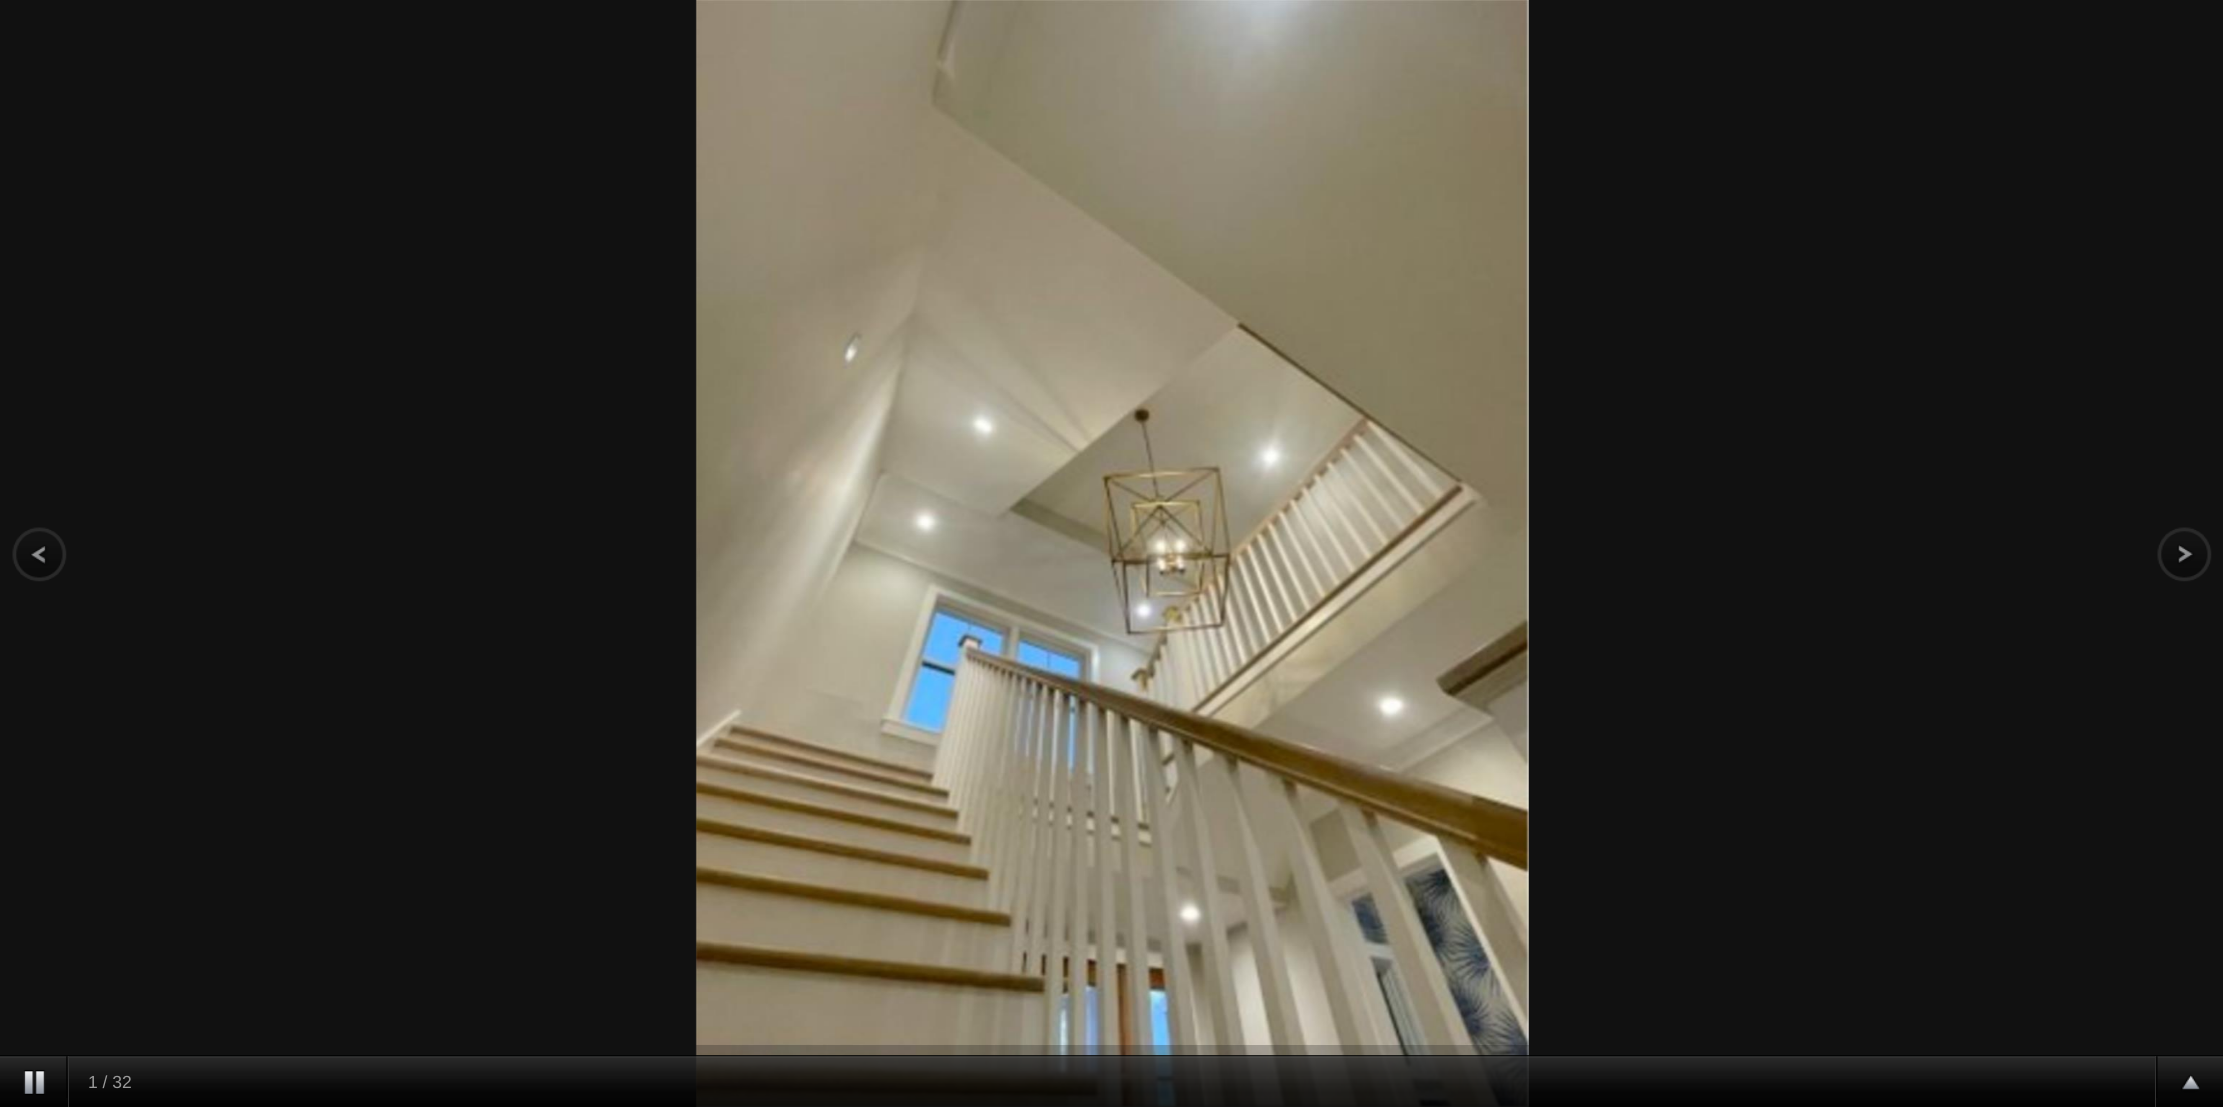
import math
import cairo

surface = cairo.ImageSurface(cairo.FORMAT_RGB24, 2223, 1107)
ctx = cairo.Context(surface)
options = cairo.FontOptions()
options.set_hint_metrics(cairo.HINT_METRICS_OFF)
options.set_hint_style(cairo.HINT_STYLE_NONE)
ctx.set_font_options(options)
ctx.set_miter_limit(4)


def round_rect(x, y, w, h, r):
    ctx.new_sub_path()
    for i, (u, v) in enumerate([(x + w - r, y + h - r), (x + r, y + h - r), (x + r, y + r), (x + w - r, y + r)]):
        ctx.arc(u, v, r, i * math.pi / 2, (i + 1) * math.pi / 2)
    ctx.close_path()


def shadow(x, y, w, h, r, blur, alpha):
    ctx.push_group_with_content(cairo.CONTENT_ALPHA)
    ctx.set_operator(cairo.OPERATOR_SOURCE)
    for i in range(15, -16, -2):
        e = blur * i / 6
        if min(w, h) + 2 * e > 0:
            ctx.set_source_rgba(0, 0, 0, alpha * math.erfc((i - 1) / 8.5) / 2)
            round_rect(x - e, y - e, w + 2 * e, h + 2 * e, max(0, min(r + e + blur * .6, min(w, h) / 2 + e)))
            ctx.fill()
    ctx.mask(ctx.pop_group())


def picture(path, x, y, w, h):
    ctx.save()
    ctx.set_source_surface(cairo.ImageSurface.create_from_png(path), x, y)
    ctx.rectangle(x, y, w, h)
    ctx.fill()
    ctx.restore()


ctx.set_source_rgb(0.067, 0.067, 0.067)
ctx.paint()
picture("img1.png", 12, 527, 55, 55)
picture("img2.png", 2157, 527, 55, 55)
picture("img6.png", 695, 0, 834, 1107)
ctx.set_source_rgba(0.063, 0.063, 0.063, 0.25)
ctx.rectangle(696, 1045, 833, 10)
ctx.fill()
ctx.set_source_rgb(0, 0, 0)
shadow(0, 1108, 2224, 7, 0, 2.5, 1)
picture("img3.png", 0, 1055, 2223, 52)
ctx.set_source_rgb(0.2, 0.2, 0.2)
ctx.rectangle(68, 1056, 1, 51)
ctx.fill()
picture("img4.png", 23, 1056, 45, 42)
ctx.select_font_face("Liberation Sans")
ctx.set_font_size(17.5)
ctx.set_source_rgb(0.6, 0.6, 0.6)
ctx.move_to(88, 1088)
ctx.show_text("1 / 32")
ctx.set_source_rgb(0.2, 0.2, 0.2)
ctx.rectangle(2155, 1056, 1, 51)
ctx.fill()
picture("img5.png", 2156, 1056, 44, 42)
surface.write_to_png("page.png")
